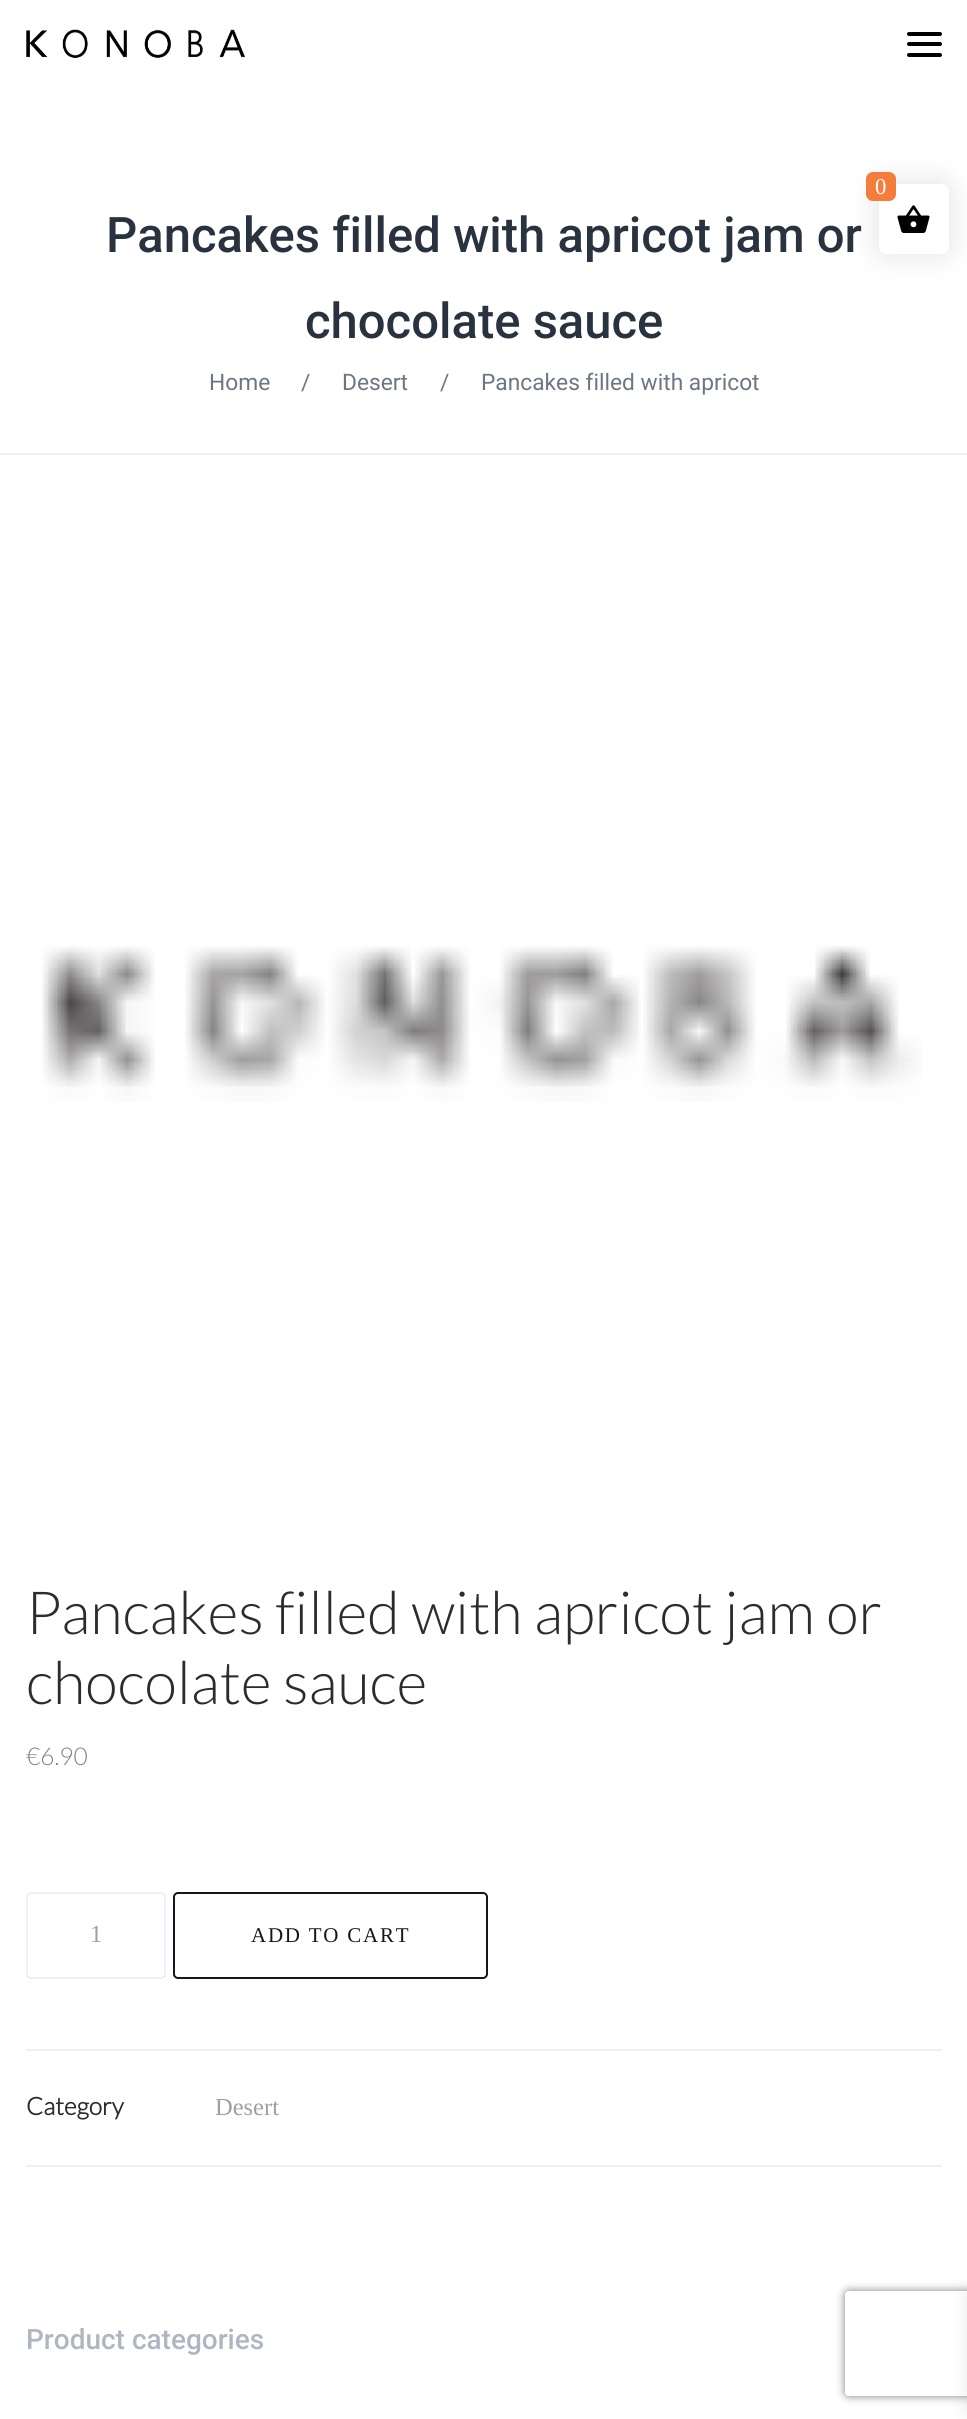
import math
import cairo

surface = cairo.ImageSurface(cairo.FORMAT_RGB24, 967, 2419)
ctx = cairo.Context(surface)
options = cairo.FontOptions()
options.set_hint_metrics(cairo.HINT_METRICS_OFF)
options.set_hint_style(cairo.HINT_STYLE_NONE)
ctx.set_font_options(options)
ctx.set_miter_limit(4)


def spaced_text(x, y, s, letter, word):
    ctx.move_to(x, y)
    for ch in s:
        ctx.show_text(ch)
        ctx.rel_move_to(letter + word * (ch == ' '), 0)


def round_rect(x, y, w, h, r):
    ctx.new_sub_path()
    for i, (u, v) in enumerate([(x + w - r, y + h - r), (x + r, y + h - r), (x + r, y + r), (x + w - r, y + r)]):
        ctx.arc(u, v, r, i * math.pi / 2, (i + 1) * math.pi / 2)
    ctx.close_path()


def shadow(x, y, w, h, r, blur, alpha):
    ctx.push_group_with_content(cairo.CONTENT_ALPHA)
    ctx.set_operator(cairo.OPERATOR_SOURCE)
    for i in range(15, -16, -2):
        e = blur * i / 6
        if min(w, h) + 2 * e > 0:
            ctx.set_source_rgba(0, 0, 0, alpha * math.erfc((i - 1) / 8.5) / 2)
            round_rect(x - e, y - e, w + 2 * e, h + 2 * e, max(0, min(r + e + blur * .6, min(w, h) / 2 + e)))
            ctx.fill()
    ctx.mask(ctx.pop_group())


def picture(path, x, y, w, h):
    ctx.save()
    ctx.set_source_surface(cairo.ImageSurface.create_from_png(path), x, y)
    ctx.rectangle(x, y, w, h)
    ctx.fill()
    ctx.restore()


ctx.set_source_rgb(1, 1, 1)
ctx.paint()
ctx.set_source_rgb(0, 0, 0)
shadow(875, 180, 77, 77, 11, 13, 0.1)
ctx.set_source_rgb(1, 1, 1)
round_rect(879, 184, 70, 70, 7)
ctx.fill()
ctx.set_source_rgb(0.957, 0.49, 0.231)
round_rect(866, 172, 30, 29, 7)
ctx.fill()
ctx.select_font_face("Liberation Serif")
ctx.set_font_size(22.75)
ctx.set_source_rgb(1, 1, 1)
ctx.move_to(875, 194)
ctx.show_text("0")
picture("img1.png", 897, 205, 33, 28)
ctx.set_source_rgb(0, 0, 0)
shadow(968, 2293, 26, 119, 0, 9, 0.1)
picture("img2.png", 26, 29, 219, 29)
ctx.set_source_rgb(0, 0, 0)
round_rect(907, 42, 35, 4, 2)
ctx.fill()
round_rect(907, 32, 35, 4, 2)
ctx.fill()
round_rect(907, 53, 35, 4, 2)
ctx.fill()
ctx.set_source_rgb(0.925, 0.941, 0.945)
ctx.rectangle(0, 453, 967, 2)
ctx.fill()
ctx.select_font_face("Roboto Medium")
ctx.set_font_size(49)
ctx.set_source_rgb(0.161, 0.2, 0.251)
ctx.move_to(106, 252)
ctx.show_text("Pancakes filled with apricot jam or")
ctx.move_to(305, 338)
ctx.show_text("chocolate sauce")
ctx.select_font_face("Roboto")
ctx.set_font_size(22.75)
ctx.set_source_rgb(0.427, 0.467, 0.514)
ctx.move_to(209, 390)
ctx.show_text("Home")
ctx.move_to(301, 390)
ctx.show_text("/")
ctx.move_to(342, 390)
ctx.show_text("Desert")
ctx.move_to(440, 390)
ctx.show_text("/")
ctx.move_to(481, 390)
ctx.show_text("Pancakes filled with apricot")
picture("img3.png", 42, 946, 880, 156)
ctx.select_font_face("Lato Light")
ctx.set_font_size(59.5)
ctx.set_source_rgb(0.165, 0.176, 0.18)
ctx.move_to(26, 1634)
ctx.show_text("Pancakes filled with apricot jam or")
ctx.move_to(26, 1704)
ctx.show_text("chocolate sauce")
ctx.set_font_size(24.5)
ctx.set_source_rgb(0.51, 0.51, 0.51)
ctx.move_to(26, 1765)
ctx.show_text("€6.90")
round_rect(27, 1893, 138, 85, 4)
ctx.set_source_rgb(0.929, 0.941, 0.969)
ctx.stroke()
ctx.select_font_face("Liberation Serif")
ctx.set_source_rgb(0.627, 0.627, 0.627)
ctx.move_to(90, 1942)
ctx.show_text("1")
round_rect(174, 1893, 313, 85, 4)
ctx.set_source_rgb(0.078, 0.09, 0.118)
ctx.stroke()
ctx.set_font_size(21)
spaced_text(251, 1942, "ADD TO CART", 1.75, 0)
ctx.set_source_rgb(0.929, 0.941, 0.969)
ctx.rectangle(26, 2049, 916, 2)
ctx.fill()
ctx.rectangle(26, 2165, 916, 2)
ctx.fill()
ctx.select_font_face("Lato", cairo.FONT_SLANT_NORMAL, cairo.FONT_WEIGHT_BOLD)
ctx.set_font_size(24.5)
ctx.set_source_rgb(0.165, 0.176, 0.18)
ctx.move_to(26, 2115)
ctx.show_text("Category")
ctx.select_font_face("Liberation Serif")
ctx.set_source_rgb(0.627, 0.627, 0.627)
ctx.move_to(215, 2115)
ctx.show_text("Desert")
ctx.select_font_face("Roboto Medium")
ctx.set_font_size(28)
ctx.set_source_rgb(0.682, 0.718, 0.757)
ctx.move_to(26, 2349)
ctx.show_text("Product categories")
ctx.save()
ctx.set_fill_rule(cairo.FILL_RULE_EVEN_ODD)
ctx.new_path()
ctx.move_to(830, 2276)
ctx.line_to(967, 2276)
ctx.line_to(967, 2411)
ctx.line_to(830, 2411)
ctx.close_path()
ctx.move_to(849, 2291)
ctx.line_to(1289, 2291)
ctx.curve_to(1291, 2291, 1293, 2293, 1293, 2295)
ctx.line_to(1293, 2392)
ctx.curve_to(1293, 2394, 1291, 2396, 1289, 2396)
ctx.line_to(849, 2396)
ctx.curve_to(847, 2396, 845, 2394, 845, 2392)
ctx.line_to(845, 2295)
ctx.curve_to(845, 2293, 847, 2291, 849, 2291)
ctx.close_path()
ctx.clip()
ctx.set_source_rgb(0.502, 0.502, 0.502)
shadow(845, 2291, 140, 105, 4, 4.5, 1)
ctx.restore()
surface.write_to_png("page.png")
